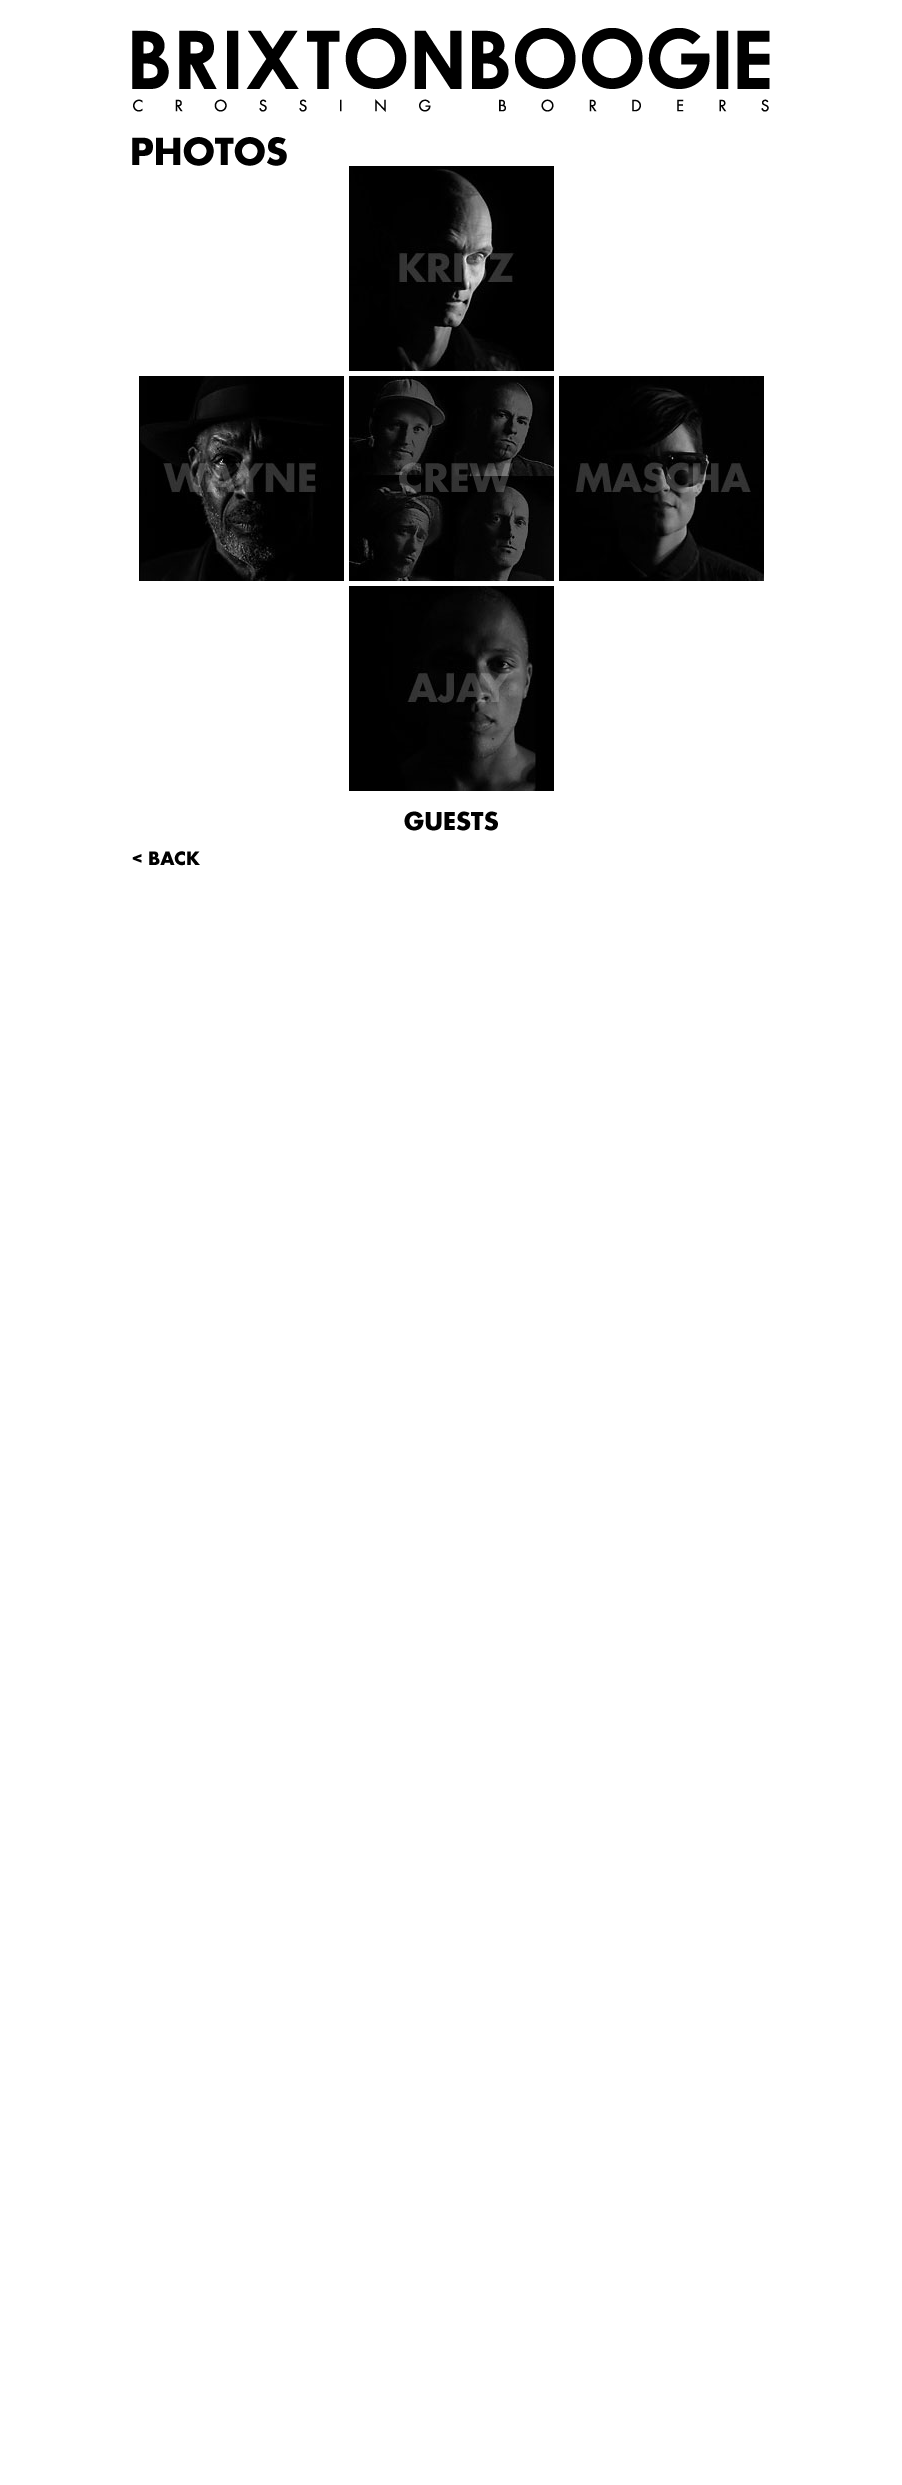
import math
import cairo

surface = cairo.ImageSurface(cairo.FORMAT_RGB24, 902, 2485)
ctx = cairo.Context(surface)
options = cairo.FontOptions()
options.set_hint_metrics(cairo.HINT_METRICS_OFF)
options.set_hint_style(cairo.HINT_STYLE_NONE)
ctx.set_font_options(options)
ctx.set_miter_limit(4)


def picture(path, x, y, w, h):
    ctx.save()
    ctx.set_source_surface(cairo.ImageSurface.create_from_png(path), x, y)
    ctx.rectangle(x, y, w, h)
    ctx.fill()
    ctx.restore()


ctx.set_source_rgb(1, 1, 1)
ctx.paint()
picture("img1.png", 132, 28, 638, 84)
picture("img2.png", 132, 137, 155, 29)
picture("img3.png", 349, 166, 205, 205)
picture("img4.png", 139, 376, 205, 205)
picture("img5.png", 349, 376, 205, 205)
picture("img6.png", 559, 376, 205, 205)
picture("img7.png", 349, 586, 205, 205)
picture("img8.png", 404, 811, 94, 20)
picture("img9.png", 132, 851, 68, 15)
surface.write_to_png("page.png")
